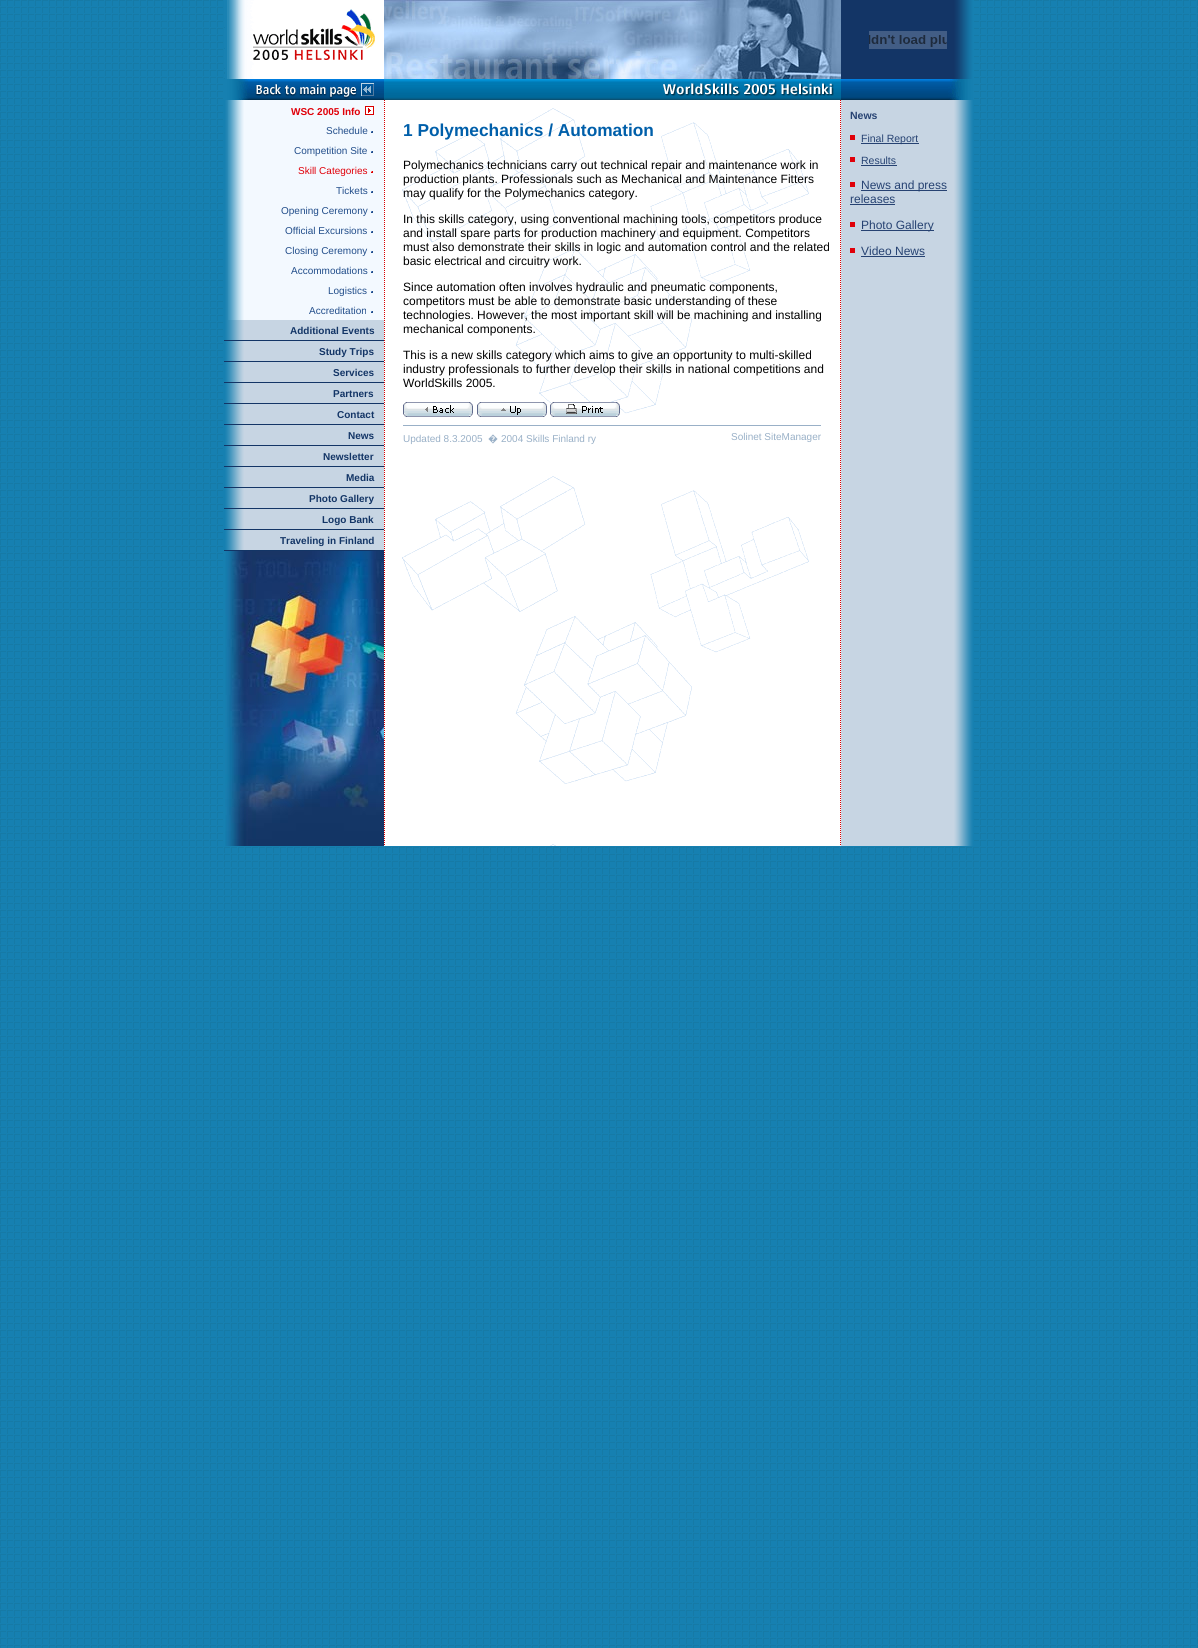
import math
import cairo

surface = cairo.ImageSurface(cairo.FORMAT_RGB24, 1198, 1648)
ctx = cairo.Context(surface)
options = cairo.FontOptions()
options.set_hint_metrics(cairo.HINT_METRICS_OFF)
options.set_hint_style(cairo.HINT_STYLE_NONE)
ctx.set_font_options(options)
ctx.set_miter_limit(4)


def picture(path, x, y, w, h):
    ctx.save()
    ctx.set_source_surface(cairo.ImageSurface.create_from_png(path), x, y)
    ctx.rectangle(x, y, w, h)
    ctx.fill()
    ctx.restore()


ctx.set_source_rgb(1, 1, 1)
ctx.paint()
picture("img1.png", 0, 0, 1198, 1648)
ctx.set_source_rgb(1, 1, 1)
ctx.rectangle(375, 0, 9, 79)
ctx.fill()
picture("img2.png", 224, 0, 151, 79)
picture("img3.png", 384, 0, 457, 79)
picture("img4.png", 841, 0, 133, 79)
picture("img5.png", 869, 31, 78, 18)
picture("img6.png", 224, 79, 160, 21)
picture("img7.png", 384, 79, 457, 21)
picture("img8.png", 841, 79, 133, 21)
picture("img9.png", 224, 100, 160, 746)
picture("img10.png", 228, 100, 156, 20)
ctx.select_font_face("Liberation Sans", cairo.FONT_SLANT_NORMAL, cairo.FONT_WEIGHT_BOLD)
ctx.set_font_size(10)
ctx.set_source_rgb(0.878, 0, 0.039)
ctx.move_to(291, 115)
ctx.show_text("WSC 2005 Info")
picture("img11.png", 365, 106, 9, 9)
picture("img10.png", 228, 120, 156, 20)
ctx.select_font_face("Liberation Sans")
ctx.set_source_rgb(0.129, 0.302, 0.541)
ctx.move_to(326, 134)
ctx.show_text("Schedule")
picture("img12.png", 371, 131, 2, 2)
picture("img10.png", 228, 140, 156, 20)
ctx.move_to(294, 154)
ctx.show_text("Competition Site")
picture("img12.png", 371, 151, 2, 2)
picture("img10.png", 228, 160, 156, 20)
ctx.set_source_rgb(0.878, 0, 0.039)
ctx.move_to(298, 174)
ctx.show_text("Skill Categories")
picture("img13.png", 371, 171, 2, 2)
picture("img10.png", 228, 180, 156, 20)
ctx.set_source_rgb(0.129, 0.302, 0.541)
ctx.move_to(336, 194)
ctx.show_text("Tickets")
picture("img12.png", 371, 191, 2, 2)
picture("img10.png", 228, 200, 156, 20)
ctx.move_to(281, 214)
ctx.show_text("Opening Ceremony")
picture("img12.png", 371, 211, 2, 2)
picture("img10.png", 228, 220, 156, 20)
ctx.move_to(285, 234)
ctx.show_text("Official Excursions")
picture("img12.png", 371, 231, 2, 2)
picture("img10.png", 228, 240, 156, 20)
ctx.move_to(285, 254)
ctx.show_text("Closing Ceremony")
picture("img12.png", 371, 251, 2, 2)
picture("img10.png", 228, 260, 156, 20)
ctx.move_to(291, 274)
ctx.show_text("Accommodations")
picture("img12.png", 371, 271, 2, 2)
picture("img10.png", 228, 280, 156, 20)
ctx.move_to(328, 294)
ctx.show_text("Logistics")
picture("img12.png", 371, 291, 2, 2)
picture("img10.png", 228, 300, 156, 20)
ctx.move_to(309, 314)
ctx.show_text("Accreditation")
picture("img12.png", 371, 311, 2, 2)
ctx.select_font_face("Liberation Sans", cairo.FONT_SLANT_NORMAL, cairo.FONT_WEIGHT_BOLD)
ctx.set_source_rgb(0.075, 0.208, 0.4)
ctx.move_to(290, 334)
ctx.show_text("Additional Events")
ctx.rectangle(224, 340, 160, 1)
ctx.fill()
ctx.move_to(319, 355)
ctx.show_text("Study Trips")
ctx.rectangle(224, 361, 160, 1)
ctx.fill()
ctx.move_to(333, 376)
ctx.show_text("Services")
ctx.rectangle(224, 382, 160, 1)
ctx.fill()
ctx.move_to(333, 397)
ctx.show_text("Partners")
ctx.rectangle(224, 403, 160, 1)
ctx.fill()
ctx.move_to(337, 418)
ctx.show_text("Contact")
ctx.rectangle(224, 424, 160, 1)
ctx.fill()
ctx.move_to(348, 439)
ctx.show_text("News")
ctx.rectangle(224, 445, 160, 1)
ctx.fill()
ctx.move_to(323, 460)
ctx.show_text("Newsletter")
ctx.rectangle(224, 466, 160, 1)
ctx.fill()
ctx.move_to(346, 481)
ctx.show_text("Media")
ctx.rectangle(224, 487, 160, 1)
ctx.fill()
ctx.move_to(309, 502)
ctx.show_text("Photo Gallery")
ctx.rectangle(224, 508, 160, 1)
ctx.fill()
ctx.move_to(322, 523)
ctx.show_text("Logo Bank")
ctx.rectangle(224, 529, 160, 1)
ctx.fill()
ctx.move_to(280, 544)
ctx.show_text("Traveling in Finland")
ctx.rectangle(224, 550, 160, 1)
ctx.fill()
picture("img14.png", 225, 551, 159, 295)
picture("img15.png", 384, 100, 457, 746)
ctx.set_font_size(17.3)
ctx.set_source_rgb(0, 0.373, 0.667)
ctx.move_to(403, 136)
ctx.show_text("1 Polymechanics / Automation")
ctx.select_font_face("Liberation Sans")
ctx.set_font_size(12)
ctx.set_source_rgb(0, 0, 0)
ctx.move_to(403, 169)
ctx.show_text("Polymechanics technicians carry out technical repair and maintenance work in")
ctx.move_to(403, 183)
ctx.show_text("production plants. Professionals such as Mechanical and Maintenance Fitters")
ctx.move_to(403, 197)
ctx.show_text("may qualify for the Polymechanics category.")
ctx.move_to(403, 223)
ctx.show_text("In this skills category, using conventional machining tools, competitors produce")
ctx.move_to(403, 237)
ctx.show_text("and install spare parts for production machinery and equipment. Competitors")
ctx.move_to(403, 251)
ctx.show_text("must also demonstrate their skills in logic and automation control and the related")
ctx.move_to(403, 265)
ctx.show_text("basic electrical and circuitry work.")
ctx.move_to(403, 291)
ctx.show_text("Since automation often involves hydraulic and pneumatic components,")
ctx.move_to(403, 305)
ctx.show_text("competitors must be able to demonstrate basic understanding of these")
ctx.move_to(403, 319)
ctx.show_text("technologies. However, the most important skill will be machining and installing")
ctx.move_to(403, 333)
ctx.show_text("mechanical components.")
ctx.move_to(403, 359)
ctx.show_text("This is a new skills category which aims to give an opportunity to multi-skilled")
ctx.move_to(403, 373)
ctx.show_text("industry professionals to further develop their skills in national competitions and")
ctx.move_to(403, 387)
ctx.show_text("WorldSkills 2005.")
picture("img16.png", 403, 402, 70, 15)
picture("img17.png", 477, 402, 70, 15)
picture("img18.png", 550, 402, 70, 15)
ctx.set_source_rgb(0.6, 0.69, 0.78)
ctx.rectangle(403, 425, 418, 1)
ctx.fill()
ctx.set_font_size(10)
ctx.move_to(403, 442)
ctx.show_text("Updated 8.3.2005")
ctx.select_font_face("Noto Sans")
ctx.move_to(488, 442)
ctx.show_text("�")
ctx.select_font_face("Liberation Sans")
ctx.move_to(501, 442)
ctx.show_text("2004 Skills Finland ry")
ctx.move_to(731, 440)
ctx.show_text("Solinet SiteManager")
picture("img19.png", 841, 100, 133, 746)
ctx.select_font_face("Liberation Sans", cairo.FONT_SLANT_NORMAL, cairo.FONT_WEIGHT_BOLD)
ctx.set_font_size(10.5)
ctx.set_source_rgb(0.149, 0.259, 0.447)
ctx.move_to(850, 119)
ctx.show_text("News")
ctx.set_source_rgb(0.878, 0, 0.039)
ctx.rectangle(850, 135, 5, 5)
ctx.fill()
ctx.set_source_rgb(0.149, 0.259, 0.447)
ctx.rectangle(861, 143, 58, 1)
ctx.fill()
ctx.select_font_face("Liberation Sans")
ctx.move_to(861, 142)
ctx.show_text("Final Report")
ctx.set_source_rgb(0.878, 0, 0.039)
ctx.rectangle(850, 157, 5, 5)
ctx.fill()
ctx.set_source_rgb(0.149, 0.259, 0.447)
ctx.move_to(861, 164)
ctx.show_text("Results")
ctx.rectangle(861, 165, 36, 1)
ctx.fill()
ctx.set_source_rgb(0.878, 0, 0.039)
ctx.rectangle(850, 182, 5, 5)
ctx.fill()
ctx.set_source_rgb(0.149, 0.259, 0.447)
ctx.rectangle(861, 190, 86, 1)
ctx.fill()
ctx.set_font_size(12)
ctx.move_to(861, 189)
ctx.show_text("News and press")
ctx.move_to(850, 203)
ctx.show_text("releases")
ctx.rectangle(850, 204, 45, 1)
ctx.fill()
ctx.set_source_rgb(0.878, 0, 0.039)
ctx.rectangle(850, 222, 5, 5)
ctx.fill()
ctx.set_source_rgb(0.149, 0.259, 0.447)
ctx.rectangle(861, 230, 73, 1)
ctx.fill()
ctx.move_to(861, 229)
ctx.show_text("Photo Gallery")
ctx.set_source_rgb(0.878, 0, 0.039)
ctx.rectangle(850, 248, 5, 5)
ctx.fill()
ctx.set_source_rgb(0.149, 0.259, 0.447)
ctx.move_to(861, 255)
ctx.show_text("Video News")
ctx.rectangle(861, 256, 64, 1)
ctx.fill()
surface.write_to_png("page.png")
